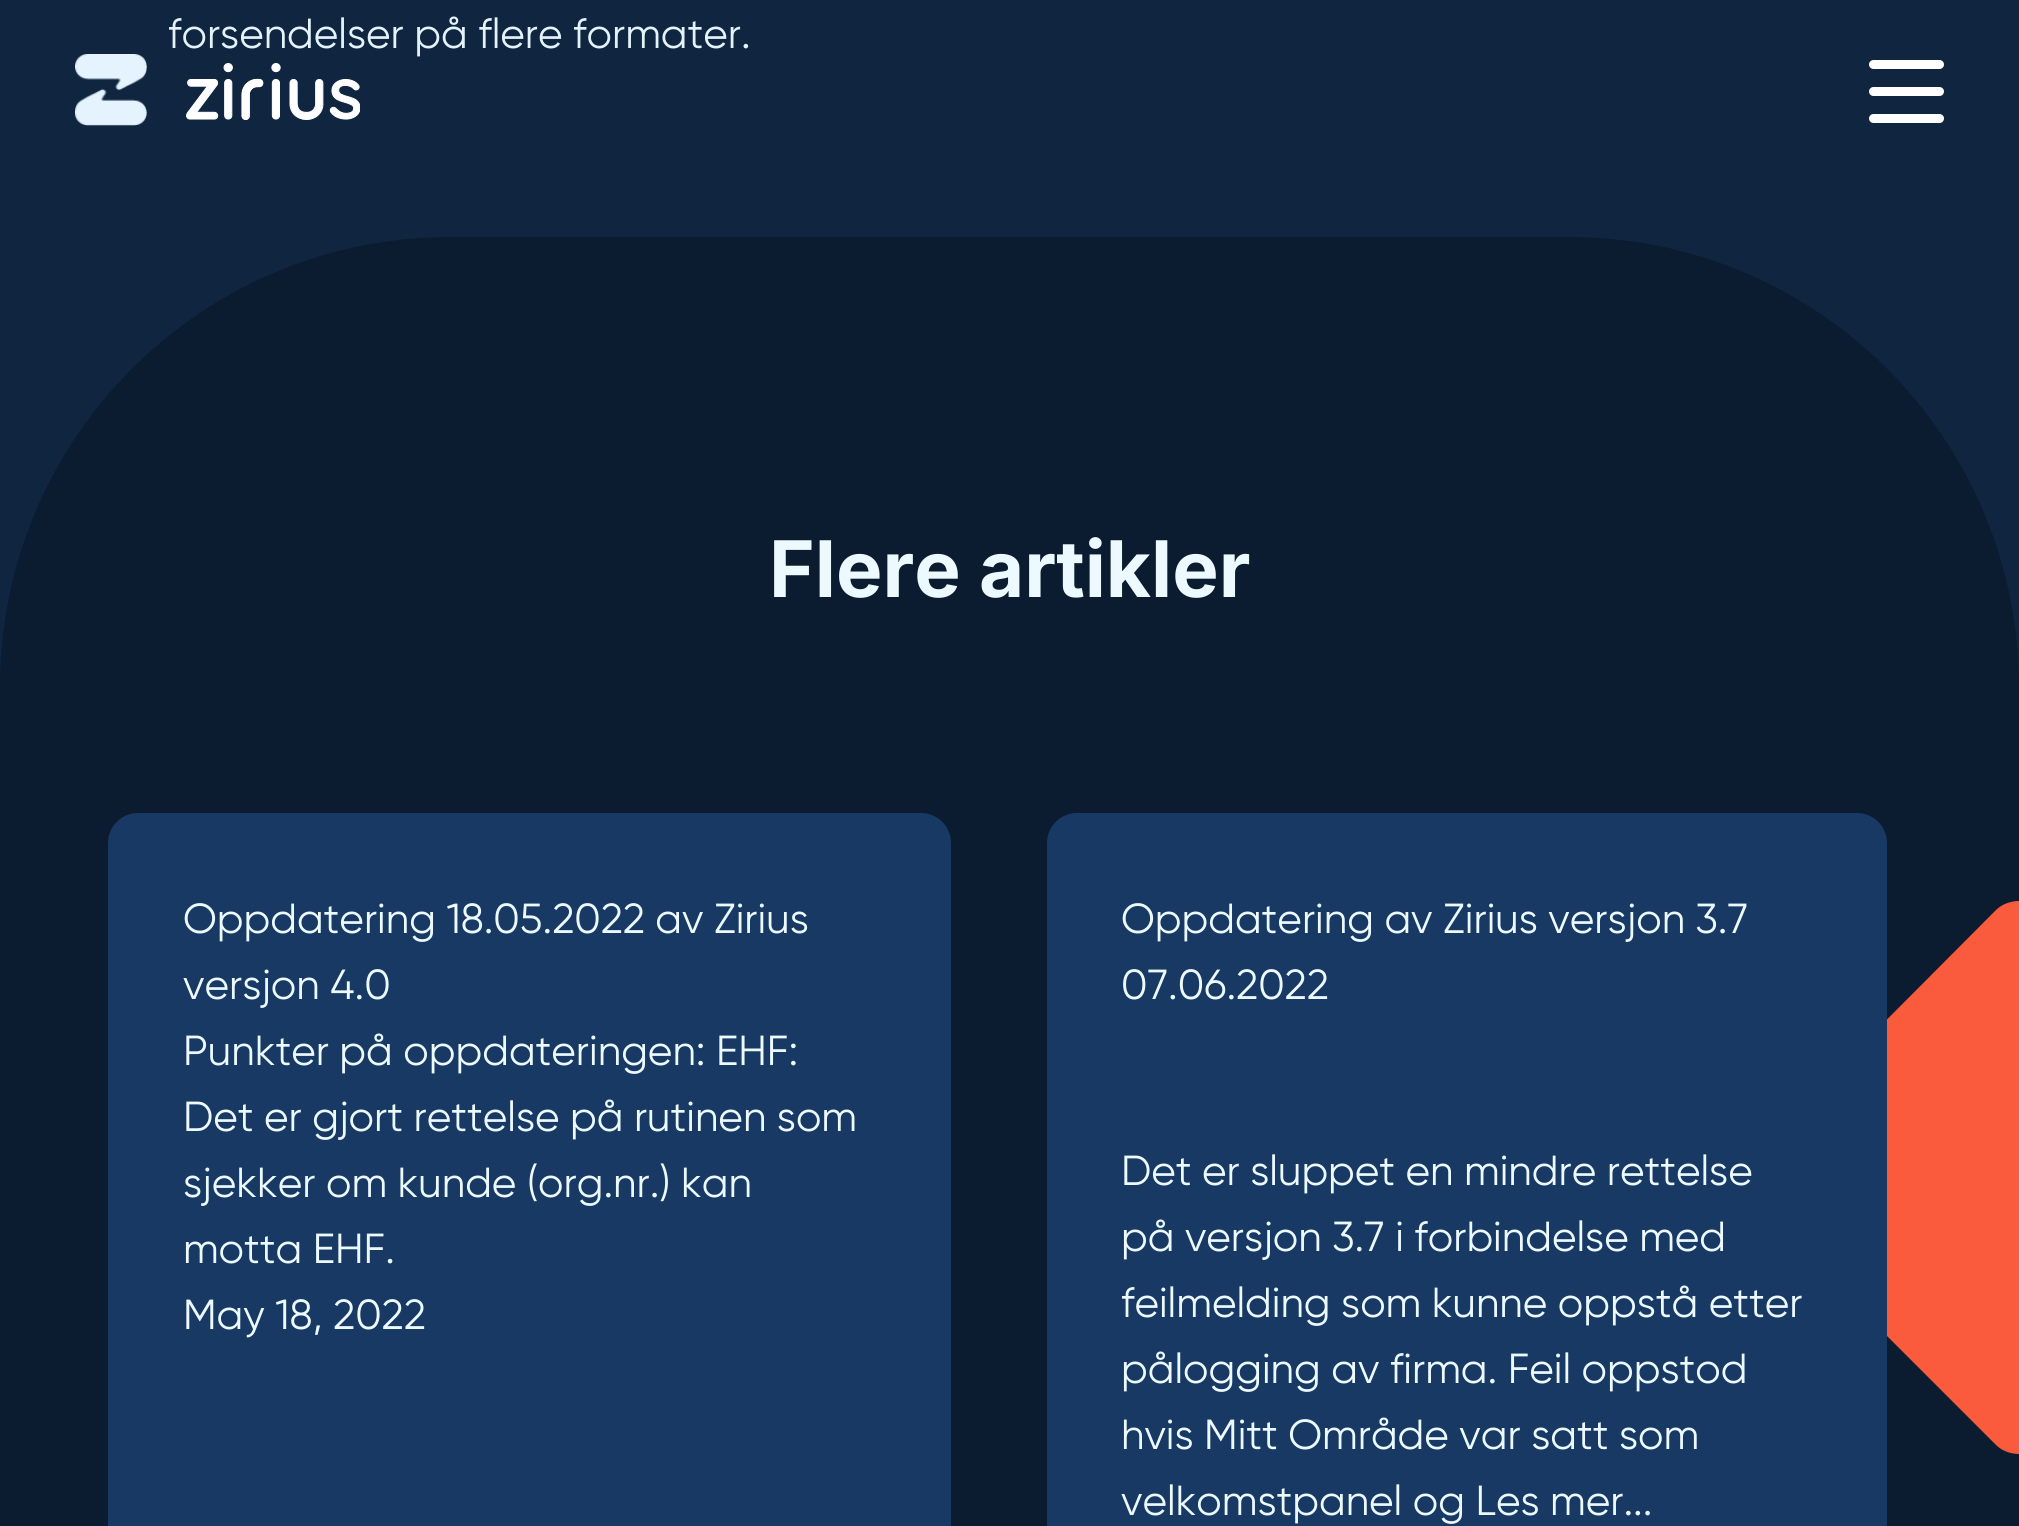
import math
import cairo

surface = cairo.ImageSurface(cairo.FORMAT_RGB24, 2019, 1526)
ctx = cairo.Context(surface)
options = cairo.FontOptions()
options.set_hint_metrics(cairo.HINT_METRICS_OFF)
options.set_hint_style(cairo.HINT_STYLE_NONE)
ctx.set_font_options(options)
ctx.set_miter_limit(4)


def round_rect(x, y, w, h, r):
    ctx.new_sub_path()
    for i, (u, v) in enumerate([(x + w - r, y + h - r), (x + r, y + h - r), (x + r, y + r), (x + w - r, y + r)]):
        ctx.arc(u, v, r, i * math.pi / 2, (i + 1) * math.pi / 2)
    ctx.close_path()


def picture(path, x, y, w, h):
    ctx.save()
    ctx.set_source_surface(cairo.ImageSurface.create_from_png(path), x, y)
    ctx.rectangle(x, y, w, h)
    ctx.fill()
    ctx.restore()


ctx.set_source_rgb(0.059, 0.145, 0.251)
ctx.paint()
ctx.select_font_face("Gilroy")
ctx.set_font_size(42)
ctx.set_source_rgb(0.894, 0.953, 0.976)
ctx.move_to(168, 48)
ctx.show_text("forsendelser på flere formater.")
picture("img1.png", 75, 54, 72, 72)
picture("img2.png", 186, 63, 174, 57)
ctx.set_source_rgb(1, 1, 1)
round_rect(1869, 60, 75, 9, 4.5)
ctx.fill()
round_rect(1869, 87, 75, 9, 4.5)
ctx.fill()
round_rect(1869, 114, 75, 9, 4.5)
ctx.fill()
ctx.set_source_rgb(0.043, 0.11, 0.188)
ctx.new_path()
ctx.move_to(450, 237)
ctx.line_to(1569, 237)
ctx.curve_to(1817.5, 237, 2019, 438.5, 2019, 687)
ctx.line_to(2019, 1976)
ctx.line_to(0, 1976)
ctx.line_to(0, 687)
ctx.curve_to(0, 438.5, 201.5, 237, 450, 237)
ctx.close_path()
ctx.fill()
ctx.select_font_face("Inter", cairo.FONT_SLANT_NORMAL, cairo.FONT_WEIGHT_BOLD)
ctx.set_font_size(78)
ctx.set_source_rgb(0.922, 0.98, 1)
ctx.move_to(769, 597)
ctx.show_text("Flere artikler")
ctx.set_source_rgb(0.09, 0.224, 0.388)
round_rect(108, 813, 843, 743, 30)
ctx.fill()
ctx.select_font_face("Gilroy")
ctx.set_font_size(42)
ctx.set_source_rgb(0.922, 0.98, 1)
ctx.move_to(183, 933)
ctx.show_text("Oppdatering 18.05.2022 av Zirius")
ctx.move_to(183, 999)
ctx.show_text("versjon 4.0")
ctx.move_to(183, 1065)
ctx.show_text("Punkter på oppdateringen: EHF:")
ctx.move_to(183, 1131)
ctx.show_text("Det er gjort rettelse på rutinen som")
ctx.move_to(183, 1197)
ctx.show_text("sjekker om kunde (org.nr.) kan")
ctx.move_to(183, 1263)
ctx.show_text("motta EHF.")
ctx.move_to(183, 1329)
ctx.show_text("May 18, 2022")
ctx.set_source_rgb(0.98, 0.357, 0.239)
ctx.new_path()
ctx.move_to(2019, 901)
ctx.line_to(2019, 1454)
ctx.curve_to(2011, 1454, 2002, 1451, 1996, 1445)
ctx.line_to(1750, 1199)
ctx.curve_to(1738, 1187, 1738, 1168, 1750, 1157)
ctx.line_to(1996, 910)
ctx.curve_to(2002, 904, 2011, 901, 2019, 901)
ctx.close_path()
ctx.fill()
ctx.set_source_rgb(0.09, 0.224, 0.388)
round_rect(1047, 813, 840, 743, 30)
ctx.fill()
ctx.set_source_rgb(0.922, 0.98, 1)
ctx.move_to(1121, 933)
ctx.show_text("Oppdatering av Zirius versjon 3.7")
ctx.move_to(1121, 999)
ctx.show_text("07.06.2022")
ctx.move_to(1121, 1185)
ctx.show_text("Det er sluppet en mindre rettelse")
ctx.move_to(1121, 1251)
ctx.show_text("på versjon 3.7 i forbindelse med")
ctx.move_to(1121, 1317)
ctx.show_text("feilmelding som kunne oppstå etter")
ctx.move_to(1121, 1383)
ctx.show_text("pålogging av firma. Feil oppstod")
ctx.move_to(1121, 1449)
ctx.show_text("hvis Mitt Område var satt som")
ctx.move_to(1121, 1515)
ctx.show_text("velkomstpanel og Les mer...")
surface.write_to_png("page.png")
